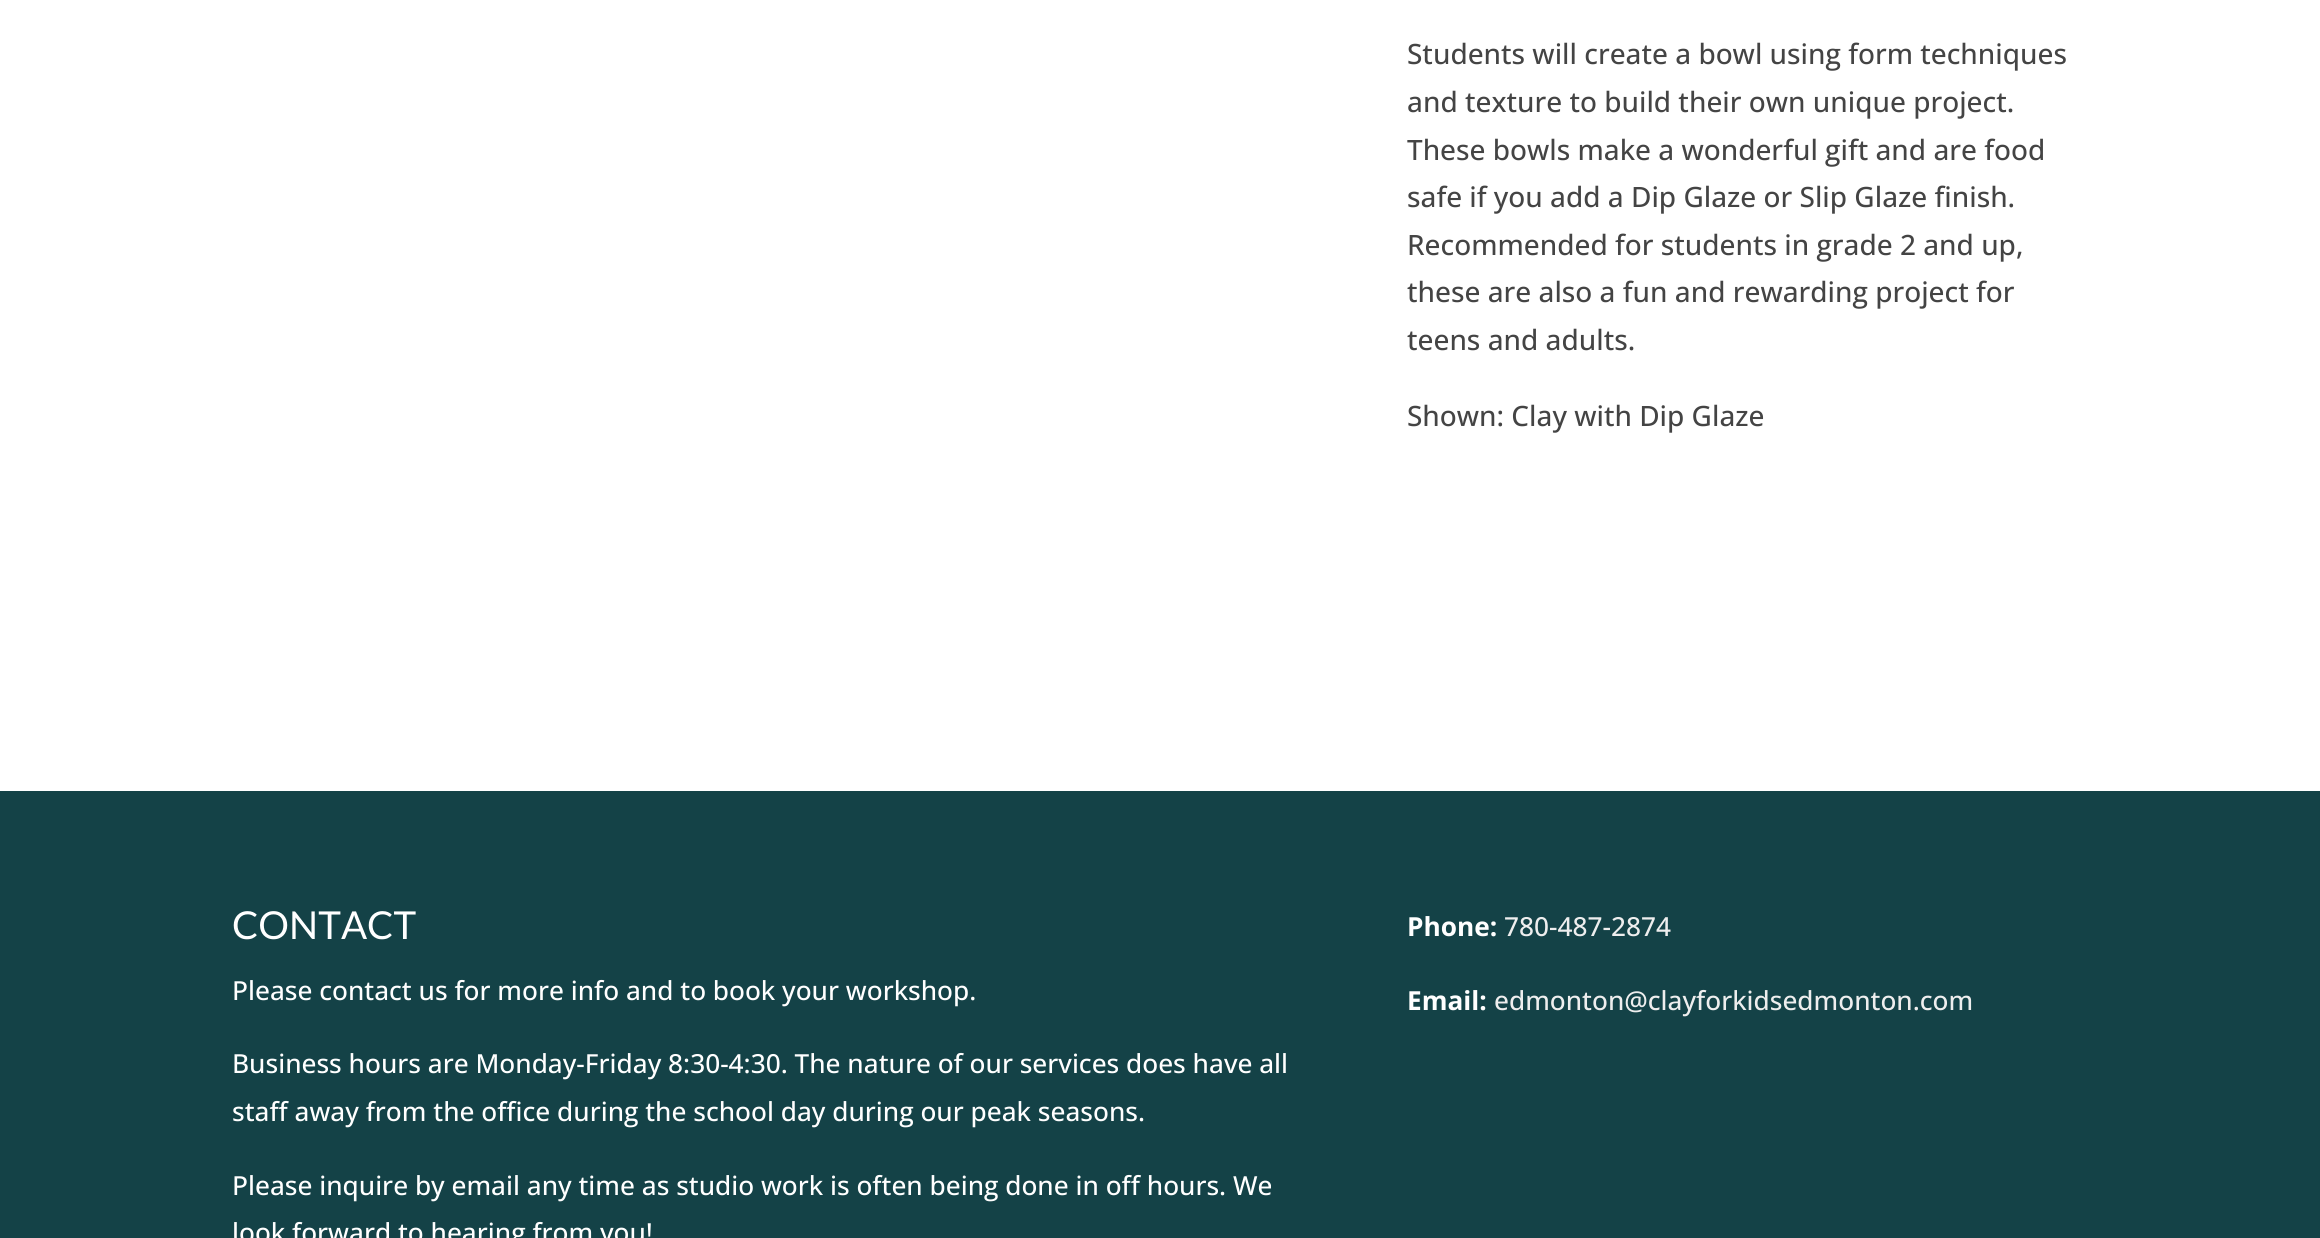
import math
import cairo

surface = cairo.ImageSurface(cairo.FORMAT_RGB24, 2320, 1238)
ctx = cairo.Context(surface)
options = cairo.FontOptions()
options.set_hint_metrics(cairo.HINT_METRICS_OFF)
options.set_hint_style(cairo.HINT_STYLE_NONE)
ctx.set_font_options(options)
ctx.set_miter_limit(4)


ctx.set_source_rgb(1, 1, 1)
ctx.paint()
ctx.select_font_face("Open Sans Medium")
ctx.set_font_size(28)
ctx.set_source_rgb(0.267, 0.267, 0.267)
ctx.move_to(1407, 64)
ctx.show_text("Students will create a bowl using form techniques")
ctx.move_to(1407, 112)
ctx.show_text("and texture to build their own unique project.")
ctx.move_to(1407, 160)
ctx.show_text("These bowls make a wonderful gift and are food")
ctx.move_to(1407, 207)
ctx.show_text("safe if you add a Dip Glaze or Slip Glaze finish.")
ctx.move_to(1407, 255)
ctx.show_text("Recommended for students in grade 2 and up,")
ctx.move_to(1407, 302)
ctx.show_text("these are also a fun and rewarding project for")
ctx.move_to(1407, 350)
ctx.show_text("teens and adults.")
ctx.move_to(1407, 426)
ctx.show_text("Shown: Clay with Dip Glaze")
ctx.set_source_rgb(0.082, 0.259, 0.278)
ctx.rectangle(0, 791, 2320, 447)
ctx.fill()
ctx.select_font_face("Lato")
ctx.set_font_size(38.5)
ctx.set_source_rgb(1, 1, 1)
ctx.move_to(232, 939)
ctx.show_text("CONTACT")
ctx.select_font_face("Open Sans Medium")
ctx.set_font_size(26.25)
ctx.move_to(232, 1000)
ctx.show_text("Please contact us for more info and to book your workshop.")
ctx.move_to(232, 1073)
ctx.show_text("Business hours are Monday-Friday 8:30-4:30. The nature of our services does have all")
ctx.move_to(232, 1121)
ctx.show_text("staff away from the office during the school day during our peak seasons.")
ctx.move_to(232, 1195)
ctx.show_text("Please inquire by email any time as studio work is often being done in off hours. We")
ctx.move_to(232, 1242)
ctx.show_text("look forward to hearing from you!")
ctx.select_font_face("Open Sans", cairo.FONT_SLANT_NORMAL, cairo.FONT_WEIGHT_BOLD)
ctx.move_to(1407, 936)
ctx.show_text("Phone:")
ctx.select_font_face("Open Sans Medium")
ctx.set_source_rgb(0.933, 0.933, 0.933)
ctx.move_to(1504, 936)
ctx.show_text("780-487-2874")
ctx.select_font_face("Open Sans", cairo.FONT_SLANT_NORMAL, cairo.FONT_WEIGHT_BOLD)
ctx.set_source_rgb(1, 1, 1)
ctx.move_to(1407, 1010)
ctx.show_text("Email:")
ctx.select_font_face("Open Sans Medium")
ctx.set_source_rgb(0.933, 0.933, 0.933)
ctx.move_to(1494, 1010)
ctx.show_text("edmonton@clayforkidsedmonton.com")
surface.write_to_png("page.png")
